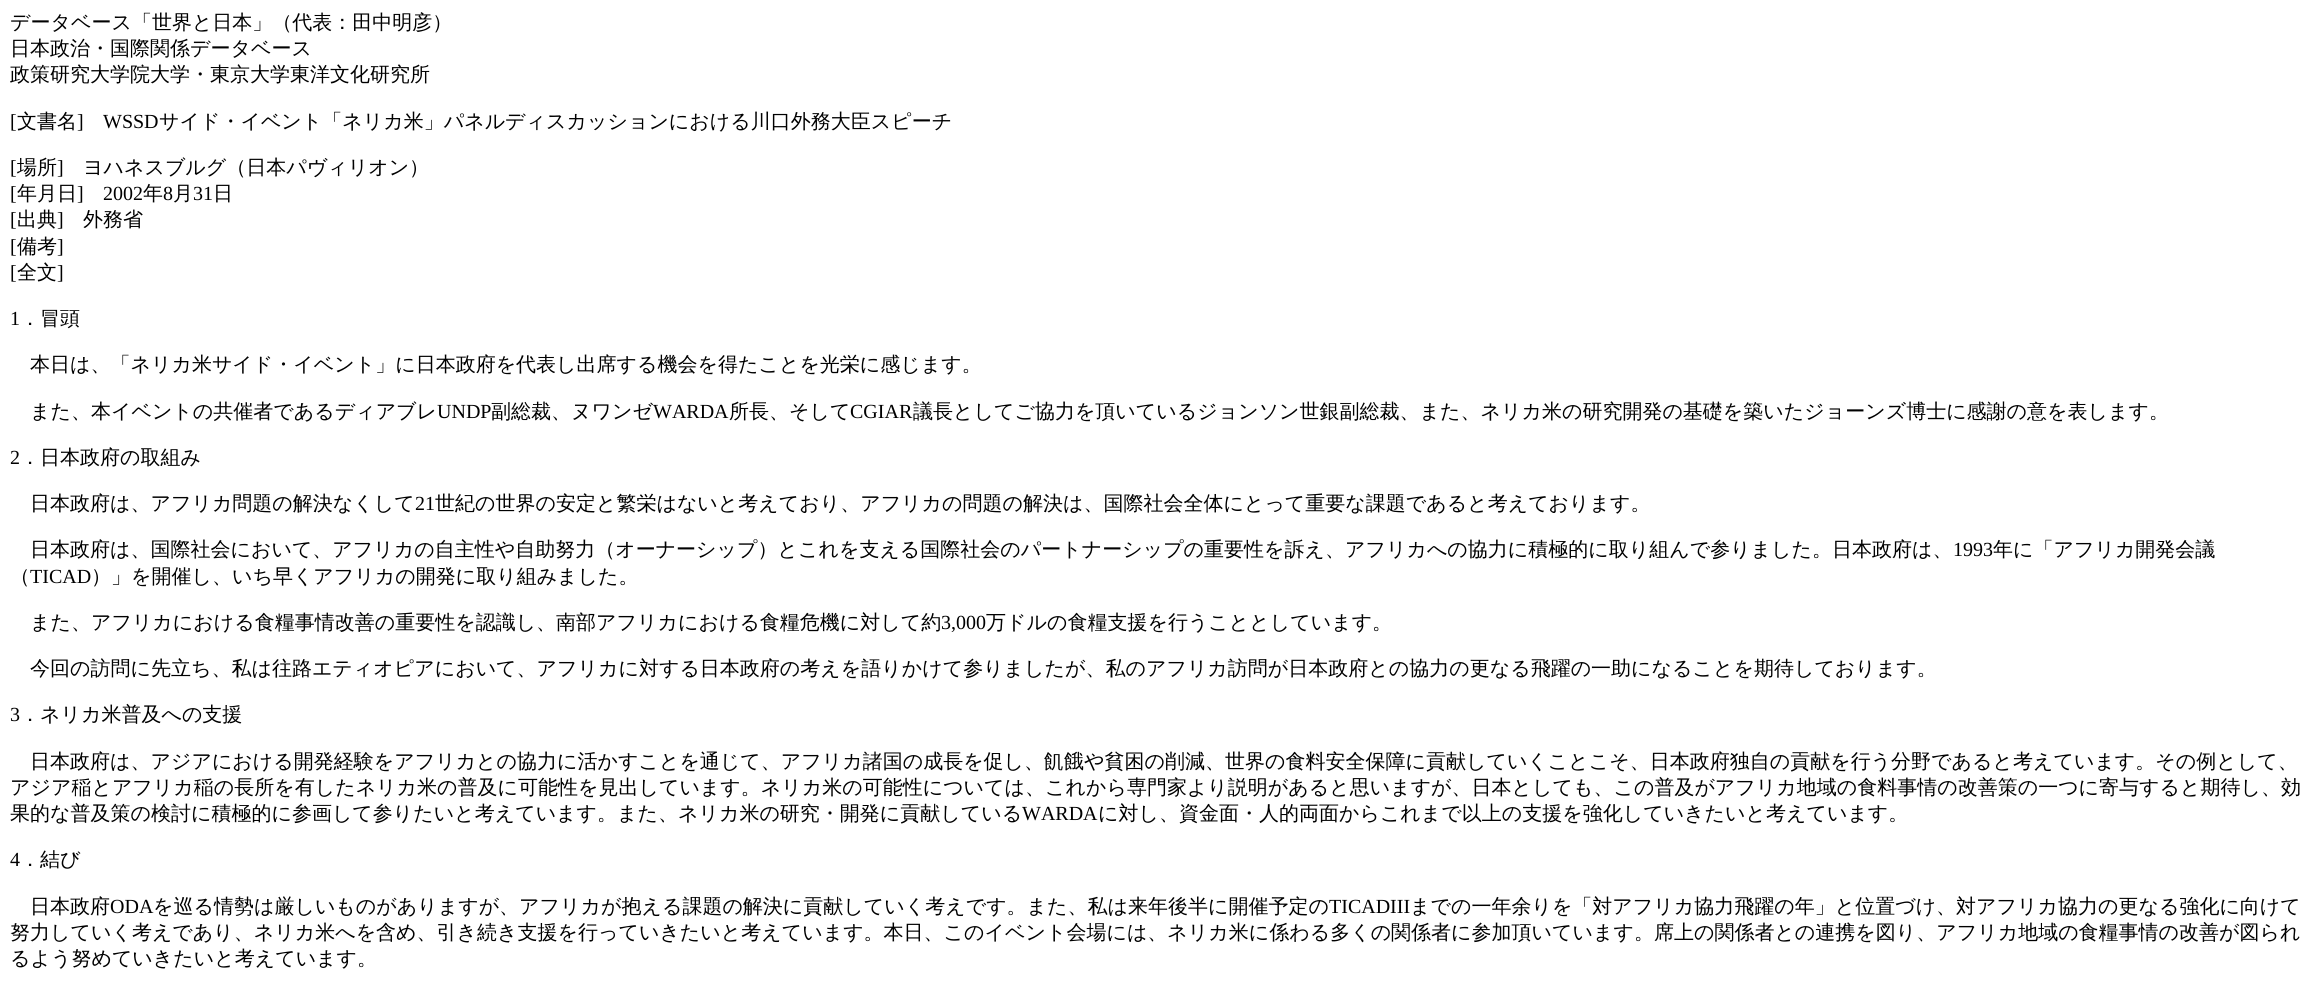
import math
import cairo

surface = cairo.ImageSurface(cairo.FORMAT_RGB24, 2323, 991)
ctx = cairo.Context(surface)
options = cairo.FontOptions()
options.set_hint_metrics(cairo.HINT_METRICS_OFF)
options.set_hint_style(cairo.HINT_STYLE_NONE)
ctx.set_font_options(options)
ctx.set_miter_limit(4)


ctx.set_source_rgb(1, 1, 1)
ctx.paint()
ctx.select_font_face("WenQuanYi Zen Hei Medium")
ctx.set_font_size(20)
ctx.set_source_rgb(0, 0, 0)
ctx.move_to(10, 29)
ctx.show_text("データベース「世界と日本」（代表：田中明彦）")
ctx.move_to(10, 55)
ctx.show_text("日本政治・国際関係データベース")
ctx.move_to(10, 81)
ctx.show_text("政策研究大学院大学・東京大学東洋文化研究所")
ctx.select_font_face("Liberation Serif")
ctx.move_to(10, 128)
ctx.show_text("[")
ctx.select_font_face("WenQuanYi Zen Hei Medium")
ctx.move_to(17, 128)
ctx.show_text("文書名")
ctx.select_font_face("Liberation Serif")
ctx.move_to(77, 128)
ctx.show_text("]")
ctx.move_to(103, 128)
ctx.show_text("WSSD")
ctx.select_font_face("WenQuanYi Zen Hei Medium")
ctx.move_to(159, 128)
ctx.show_text("サイド・イベント「ネリカ米」パネルディスカッションにおける川口外務大臣スピーチ")
ctx.select_font_face("Liberation Serif")
ctx.move_to(10, 174)
ctx.show_text("[")
ctx.select_font_face("WenQuanYi Zen Hei Medium")
ctx.move_to(17, 174)
ctx.show_text("場所")
ctx.select_font_face("Liberation Serif")
ctx.move_to(57, 174)
ctx.show_text("]")
ctx.select_font_face("WenQuanYi Zen Hei Medium")
ctx.move_to(83, 174)
ctx.show_text("ヨハネスブルグ（日本パヴィリオン）")
ctx.select_font_face("Liberation Serif")
ctx.move_to(10, 200)
ctx.show_text("[")
ctx.select_font_face("WenQuanYi Zen Hei Medium")
ctx.move_to(17, 200)
ctx.show_text("年月日")
ctx.select_font_face("Liberation Serif")
ctx.move_to(77, 200)
ctx.show_text("]")
ctx.move_to(103, 200)
ctx.show_text("2002")
ctx.select_font_face("WenQuanYi Zen Hei Medium")
ctx.move_to(143, 200)
ctx.show_text("年")
ctx.select_font_face("Liberation Serif")
ctx.move_to(163, 200)
ctx.show_text("8")
ctx.select_font_face("WenQuanYi Zen Hei Medium")
ctx.move_to(173, 200)
ctx.show_text("月")
ctx.select_font_face("Liberation Serif")
ctx.move_to(193, 200)
ctx.show_text("31")
ctx.select_font_face("WenQuanYi Zen Hei Medium")
ctx.move_to(213, 200)
ctx.show_text("日")
ctx.select_font_face("Liberation Serif")
ctx.move_to(10, 226)
ctx.show_text("[")
ctx.select_font_face("WenQuanYi Zen Hei Medium")
ctx.move_to(17, 226)
ctx.show_text("出典")
ctx.select_font_face("Liberation Serif")
ctx.move_to(57, 226)
ctx.show_text("]")
ctx.select_font_face("WenQuanYi Zen Hei Medium")
ctx.move_to(83, 226)
ctx.show_text("外務省")
ctx.select_font_face("Liberation Serif")
ctx.move_to(10, 253)
ctx.show_text("[")
ctx.select_font_face("WenQuanYi Zen Hei Medium")
ctx.move_to(17, 253)
ctx.show_text("備考")
ctx.select_font_face("Liberation Serif")
ctx.move_to(57, 253)
ctx.show_text("]")
ctx.move_to(10, 279)
ctx.show_text("[")
ctx.select_font_face("WenQuanYi Zen Hei Medium")
ctx.move_to(17, 279)
ctx.show_text("全文")
ctx.select_font_face("Liberation Serif")
ctx.move_to(57, 279)
ctx.show_text("]")
ctx.move_to(10, 325)
ctx.show_text("1")
ctx.select_font_face("WenQuanYi Zen Hei Medium")
ctx.move_to(20, 325)
ctx.show_text("．冒頭")
ctx.move_to(30, 371)
ctx.show_text("本日は、「ネリカ米サイド・イベント」に日本政府を代表し出席する機会を得たことを光栄に感じます。")
ctx.move_to(30, 418)
ctx.show_text("また、本イベントの共催者であるディアブレ")
ctx.select_font_face("Liberation Serif")
ctx.move_to(437, 418)
ctx.show_text("UNDP")
ctx.select_font_face("WenQuanYi Zen Hei Medium")
ctx.move_to(491, 418)
ctx.show_text("副総裁、ヌワンゼ")
ctx.select_font_face("Liberation Serif")
ctx.move_to(653, 418)
ctx.show_text("WARDA")
ctx.select_font_face("WenQuanYi Zen Hei Medium")
ctx.move_to(729, 418)
ctx.show_text("所長、そして")
ctx.select_font_face("Liberation Serif")
ctx.move_to(850, 418)
ctx.show_text("CGIAR")
ctx.select_font_face("WenQuanYi Zen Hei Medium")
ctx.move_to(913, 418)
ctx.show_text("議長としてご協力を頂いているジョンソン世銀副総裁、また、ネリカ米の研究開発の基礎を築いたジョーンズ博士に感謝の意を表します。")
ctx.select_font_face("Liberation Serif")
ctx.move_to(10, 464)
ctx.show_text("2")
ctx.select_font_face("WenQuanYi Zen Hei Medium")
ctx.move_to(20, 464)
ctx.show_text("．日本政府の取組み")
ctx.move_to(30, 510)
ctx.show_text("日本政府は、アフリカ問題の解決なくして")
ctx.select_font_face("Liberation Serif")
ctx.move_to(415, 510)
ctx.show_text("21")
ctx.select_font_face("WenQuanYi Zen Hei Medium")
ctx.move_to(435, 510)
ctx.show_text("世紀の世界の安定と繁栄はないと考えており、アフリカの問題の解決は、国際社会全体にとって重要な課題であると考えております。")
ctx.move_to(30, 556)
ctx.show_text("日本政府は、国際社会において、アフリカの自主性や自助努力（オーナーシップ）とこれを支える国際社会のパートナーシップの重要性を訴え、アフリカへの協力に積極的に取り組んで参りました。日本政府は、")
ctx.select_font_face("Liberation Serif")
ctx.move_to(1953, 556)
ctx.show_text("1993")
ctx.select_font_face("WenQuanYi Zen Hei Medium")
ctx.move_to(1993, 556)
ctx.show_text("年に「アフリカ開発会議")
ctx.move_to(10, 583)
ctx.show_text("（")
ctx.select_font_face("Liberation Serif")
ctx.move_to(30, 583)
ctx.show_text("TICAD")
ctx.select_font_face("WenQuanYi Zen Hei Medium")
ctx.move_to(91, 583)
ctx.show_text("）」を開催し、いち早くアフリカの開発に取り組みました。")
ctx.move_to(30, 629)
ctx.show_text("また、アフリカにおける食糧事情改善の重要性を認識し、南部アフリカにおける食糧危機に対して約")
ctx.select_font_face("Liberation Serif")
ctx.move_to(941, 629)
ctx.show_text("3,000")
ctx.select_font_face("WenQuanYi Zen Hei Medium")
ctx.move_to(986, 629)
ctx.show_text("万ドルの食糧支援を行うこととしています。")
ctx.move_to(30, 675)
ctx.show_text("今回の訪問に先立ち、私は往路エティオピアにおいて、アフリカに対する日本政府の考えを語りかけて参りましたが、私のアフリカ訪問が日本政府との協力の更なる飛躍の一助になることを期待しております。")
ctx.select_font_face("Liberation Serif")
ctx.move_to(10, 721)
ctx.show_text("3")
ctx.select_font_face("WenQuanYi Zen Hei Medium")
ctx.move_to(20, 721)
ctx.show_text("．ネリカ米普及への支援")
ctx.move_to(30, 768)
ctx.show_text("日本政府は、アジアにおける開発経験をアフリカとの協力に活かすことを通じて、アフリカ諸国の成長を促し、飢餓や貧困の削減、世界の食料安全保障に貢献していくことこそ、日本政府独自の貢献を行う分野であると考えています。その例として、")
ctx.move_to(10, 794)
ctx.show_text("アジア稲とアフリカ稲の長所を有したネリカ米の普及に可能性を見出しています。ネリカ米の可能性については、これから専門家より説明があると思いますが、日本としても、この普及がアフリカ地域の食料事情の改善策の一つに寄与すると期待し、効")
ctx.move_to(10, 820)
ctx.show_text("果的な普及策の検討に積極的に参画して参りたいと考えています。また、ネリカ米の研究・開発に貢献している")
ctx.select_font_face("Liberation Serif")
ctx.move_to(1022, 820)
ctx.show_text("WARDA")
ctx.select_font_face("WenQuanYi Zen Hei Medium")
ctx.move_to(1098, 820)
ctx.show_text("に対し、資金面・人的両面からこれまで以上の支援を強化していきたいと考えています。")
ctx.select_font_face("Liberation Serif")
ctx.move_to(10, 866)
ctx.show_text("4")
ctx.select_font_face("WenQuanYi Zen Hei Medium")
ctx.move_to(20, 866)
ctx.show_text("．結び")
ctx.move_to(30, 913)
ctx.show_text("日本政府")
ctx.select_font_face("Liberation Serif")
ctx.move_to(110, 913)
ctx.show_text("ODA")
ctx.select_font_face("WenQuanYi Zen Hei Medium")
ctx.move_to(153, 913)
ctx.show_text("を巡る情勢は厳しいものがありますが、アフリカが抱える課題の解決に貢献していく考えです。また、私は来年後半に開催予定の")
ctx.select_font_face("Liberation Serif")
ctx.move_to(1329, 913)
ctx.show_text("TICADIII")
ctx.select_font_face("WenQuanYi Zen Hei Medium")
ctx.move_to(1410, 913)
ctx.show_text("までの一年余りを「対アフリカ協力飛躍の年」と位置づけ、対アフリカ協力の更なる強化に向けて")
ctx.move_to(10, 939)
ctx.show_text("努力していく考えであり、ネリカ米へを含め、引き続き支援を行っていきたいと考えています。本日、このイベント会場には、ネリカ米に係わる多くの関係者に参加頂いています。席上の関係者との連携を図り、アフリカ地域の食糧事情の改善が図られ")
ctx.move_to(10, 965)
ctx.show_text("るよう努めていきたいと考えています。")
surface.write_to_png("page.png")
